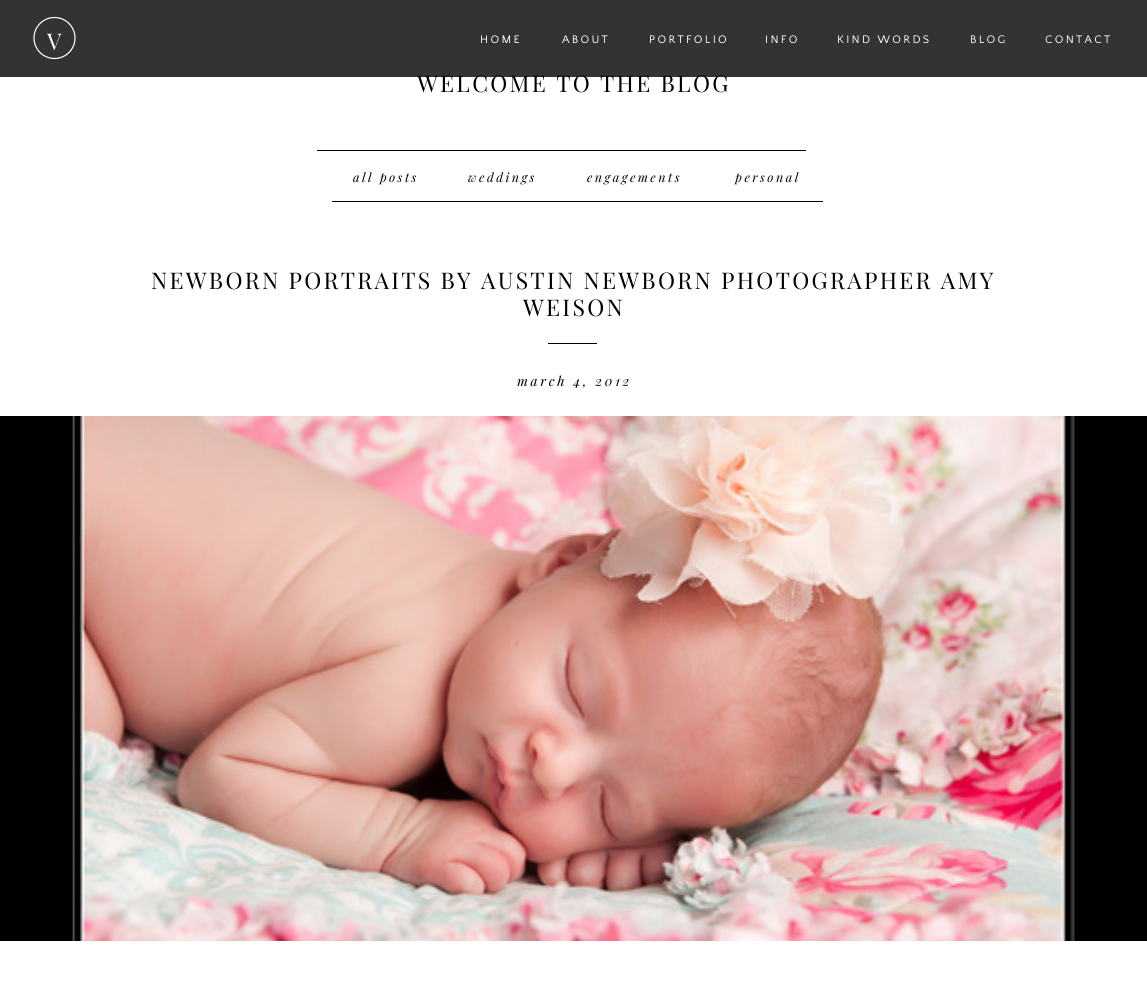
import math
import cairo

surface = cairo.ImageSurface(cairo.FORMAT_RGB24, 1147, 1000)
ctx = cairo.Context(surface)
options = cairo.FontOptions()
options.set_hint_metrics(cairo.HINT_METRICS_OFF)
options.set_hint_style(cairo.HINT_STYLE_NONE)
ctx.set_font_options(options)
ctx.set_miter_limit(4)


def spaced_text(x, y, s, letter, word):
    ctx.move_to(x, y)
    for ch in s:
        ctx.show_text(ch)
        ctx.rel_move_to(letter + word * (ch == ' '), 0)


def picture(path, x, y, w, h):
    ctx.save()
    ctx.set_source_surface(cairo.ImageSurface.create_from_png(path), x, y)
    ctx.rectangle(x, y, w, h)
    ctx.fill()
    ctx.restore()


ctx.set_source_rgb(1, 1, 1)
ctx.paint()
ctx.select_font_face("Playfair Display")
ctx.set_font_size(22.95)
ctx.set_source_rgb(0, 0, 0)
spaced_text(417, 92, "WELCOME TO THE BLOG", 2.3, 0)
ctx.set_source_rgba(0, 0, 0, 0.8)
ctx.rectangle(0, 0, 1147, 77)
ctx.fill()
ctx.arc(54.5, 38, 20.5, 0, 2 * math.pi)
ctx.set_source_rgb(1, 1, 1)
ctx.set_line_width(1.2)
ctx.stroke()
spaced_text(47, 50, "V", 5, 0)
ctx.select_font_face("Quattrocento Sans")
ctx.set_font_size(11.5)
spaced_text(480, 43, "HOME", 2.3, 0)
spaced_text(562, 43, "ABOUT", 2.3, 0)
spaced_text(649, 43, "PORTFOLIO", 2.3, 0)
spaced_text(765, 43, "INFO", 2.3, 0)
spaced_text(837, 43, "KIND WORDS", 2.3, 0)
spaced_text(970, 43, "BLOG", 2.3, 0)
spaced_text(1045, 43, "CONTACT", 2.3, 0)
ctx.set_source_rgb(0, 0, 0)
ctx.rectangle(317, 150, 489, 1)
ctx.fill()
ctx.select_font_face("Playfair Display", cairo.FONT_SLANT_ITALIC)
ctx.set_font_size(12.5)
spaced_text(353, 182, "all posts", 2.5, 0)
spaced_text(468, 182, "weddings", 2.5, 0)
spaced_text(587, 182, "engagements", 2.5, 0)
spaced_text(735, 182, "personal", 2.5, 0)
ctx.rectangle(332, 201, 491, 1)
ctx.fill()
ctx.select_font_face("Playfair Display")
ctx.set_font_size(22.95)
spaced_text(151, 289, "NEWBORN PORTRAITS BY AUSTIN NEWBORN PHOTOGRAPHER AMY", 2.3, 0)
spaced_text(523, 316, "WEISON", 2.3, 0)
ctx.rectangle(548, 343, 49, 1)
ctx.fill()
ctx.select_font_face("Playfair Display", cairo.FONT_SLANT_ITALIC)
ctx.set_font_size(13.4)
spaced_text(517, 386, "march 4, 2012", 2.75, 0)
picture("img1.png", 0, 416, 1147, 525)
surface.write_to_png("page.png")
